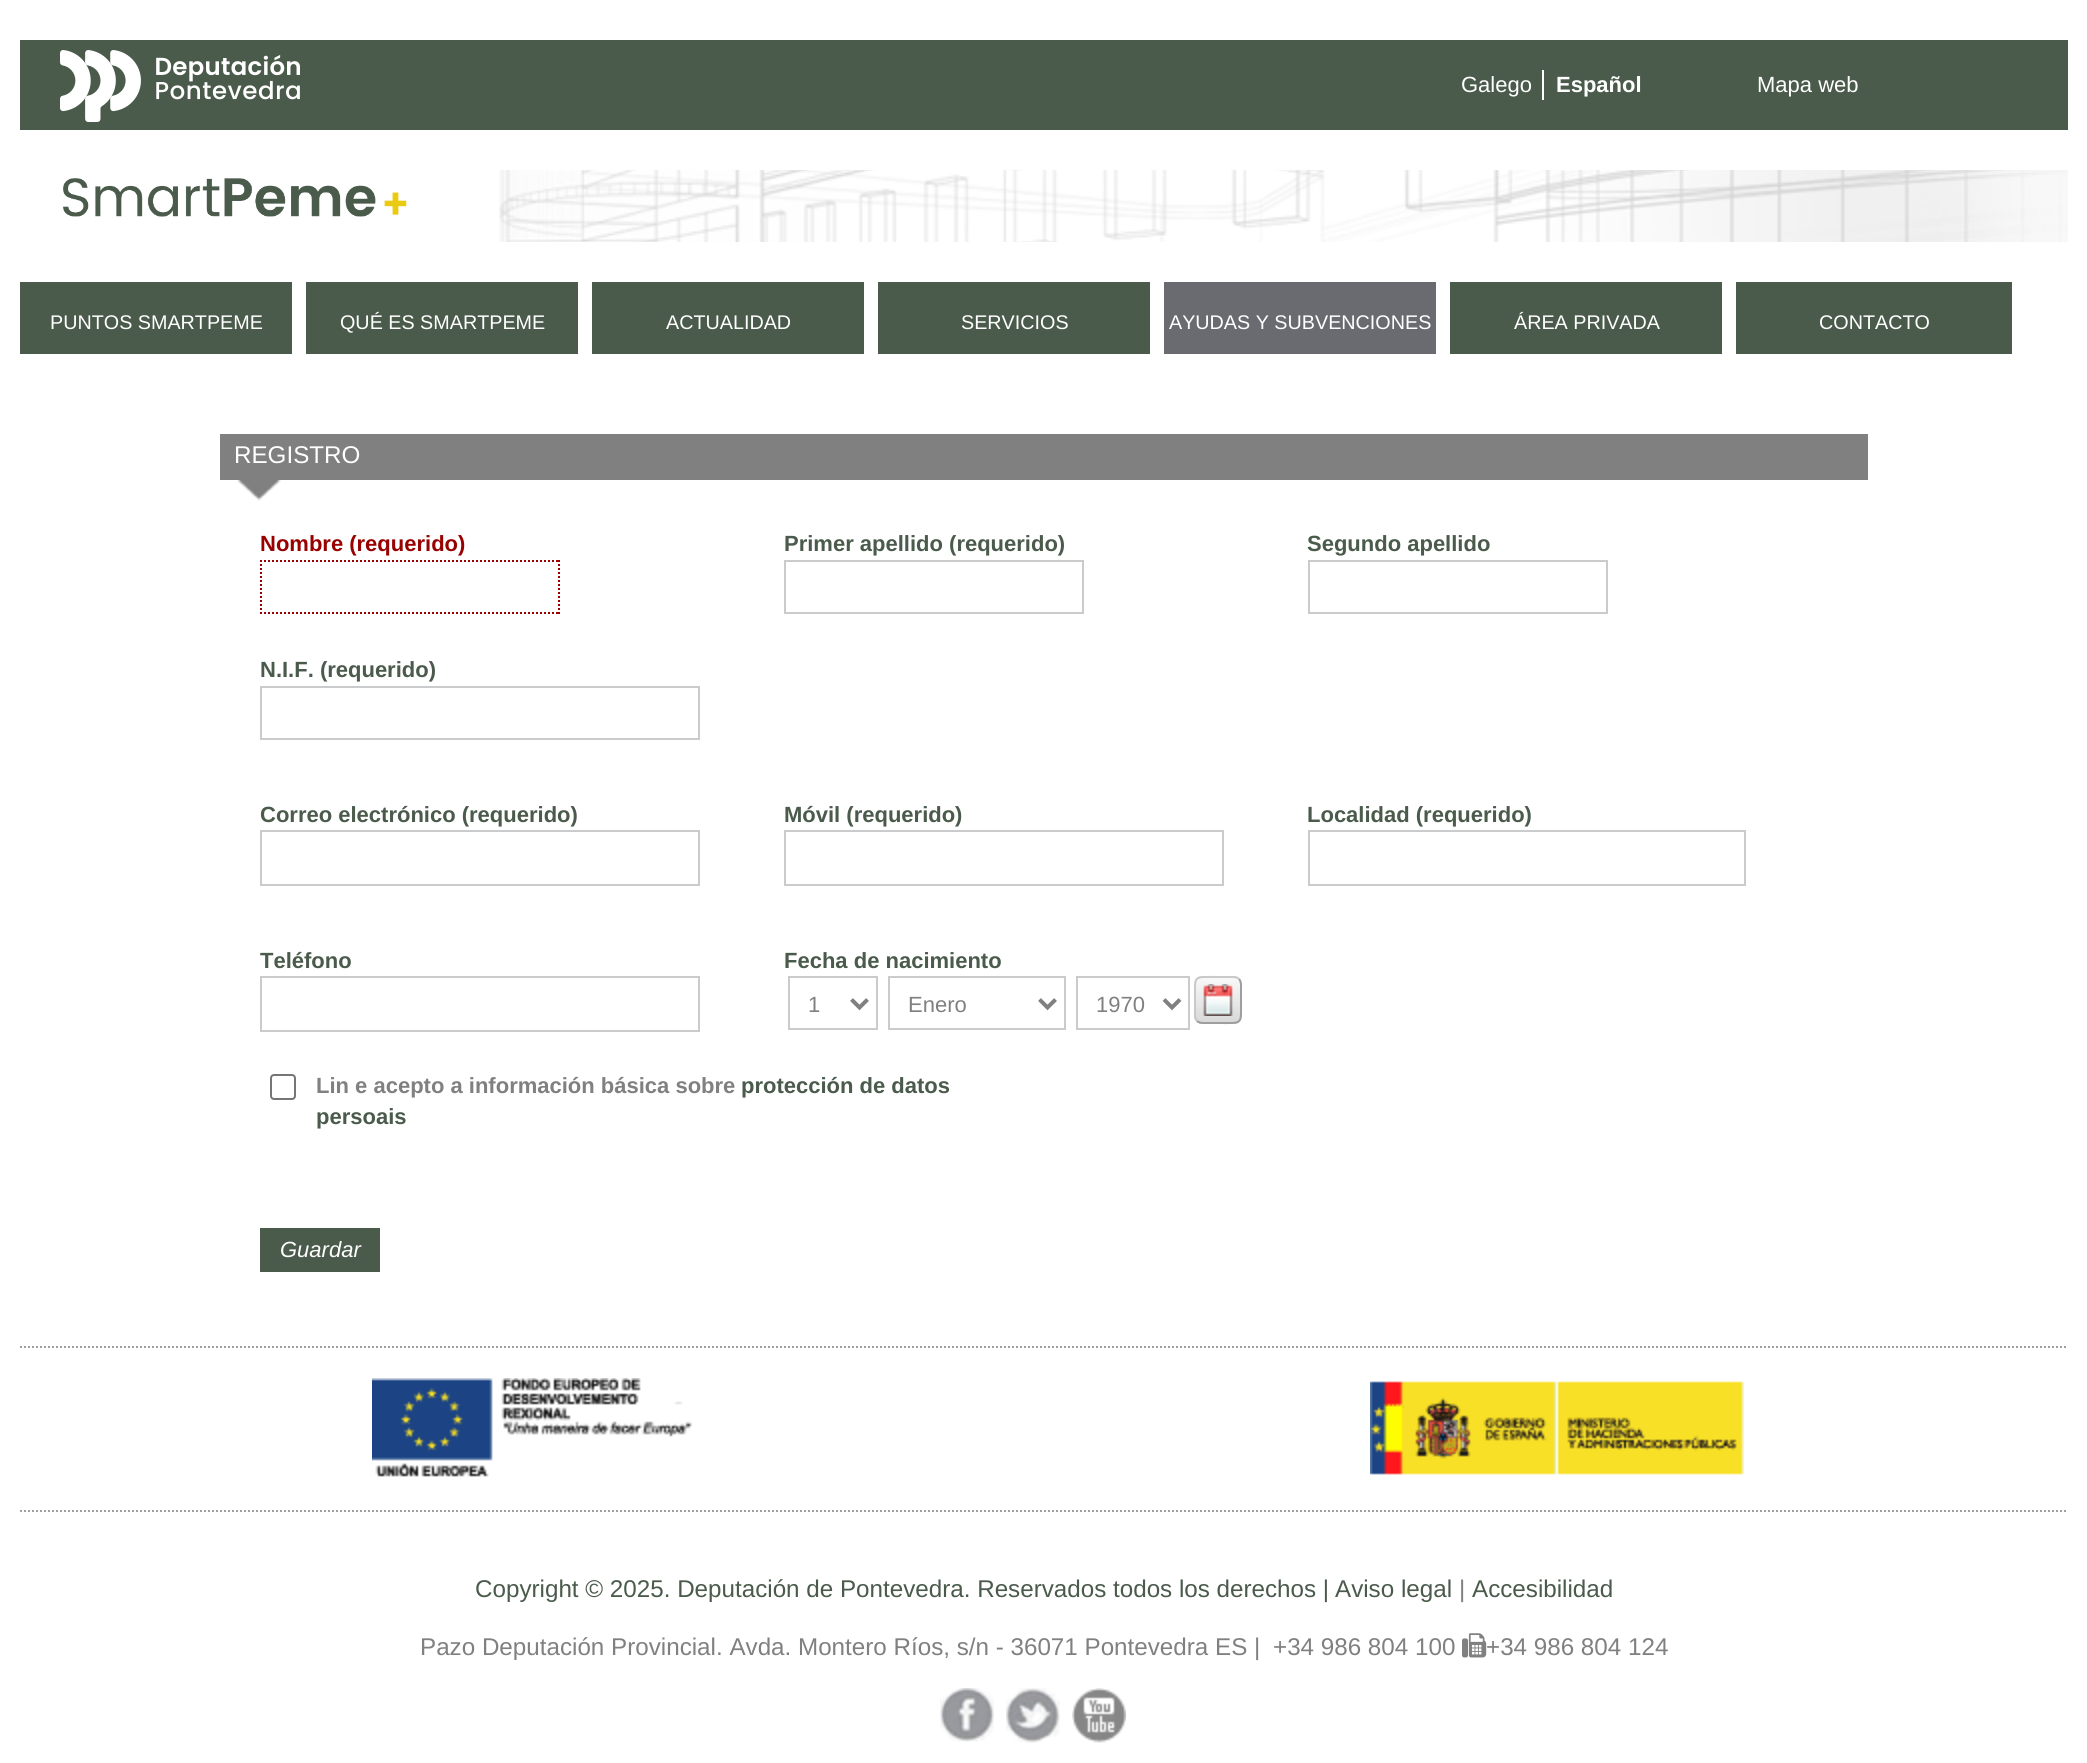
import math
import cairo

surface = cairo.ImageSurface(cairo.FORMAT_RGB24, 2087, 1763)
ctx = cairo.Context(surface)
options = cairo.FontOptions()
options.set_hint_metrics(cairo.HINT_METRICS_OFF)
options.set_hint_style(cairo.HINT_STYLE_NONE)
ctx.set_font_options(options)
ctx.set_miter_limit(4)


def round_rect(x, y, w, h, r):
    ctx.new_sub_path()
    for i, (u, v) in enumerate([(x + w - r, y + h - r), (x + r, y + h - r), (x + r, y + r), (x + w - r, y + r)]):
        ctx.arc(u, v, r, i * math.pi / 2, (i + 1) * math.pi / 2)
    ctx.close_path()


def picture(path, x, y, w, h):
    ctx.save()
    ctx.set_source_surface(cairo.ImageSurface.create_from_png(path), x, y)
    ctx.rectangle(x, y, w, h)
    ctx.fill()
    ctx.restore()


ctx.set_source_rgb(1, 1, 1)
ctx.paint()
ctx.set_source_rgb(0.29, 0.353, 0.294)
ctx.rectangle(20, 40, 2048, 90)
ctx.fill()
picture("img1.png", 60, 50, 240, 72)
ctx.set_source_rgb(1, 1, 1)
ctx.rectangle(1542, 70, 2, 30)
ctx.fill()
ctx.select_font_face("Liberation Sans")
ctx.set_font_size(22)
ctx.move_to(1461, 92)
ctx.show_text("Galego")
ctx.select_font_face("Liberation Sans", cairo.FONT_SLANT_NORMAL, cairo.FONT_WEIGHT_BOLD)
ctx.move_to(1556, 92)
ctx.show_text("Español")
ctx.select_font_face("Liberation Sans")
ctx.move_to(1757, 92)
ctx.show_text("Mapa web")
picture("img2.png", 499, 170, 1569, 72)
picture("img3.png", 63, 178, 344, 39)
ctx.set_source_rgb(0.29, 0.353, 0.294)
ctx.rectangle(20, 282, 272, 72)
ctx.fill()
ctx.set_font_size(19.75)
ctx.set_source_rgb(1, 1, 1)
ctx.move_to(50, 329)
ctx.show_text("PUNTOS SMARTPEME")
ctx.set_source_rgb(0.29, 0.353, 0.294)
ctx.rectangle(306, 282, 272, 72)
ctx.fill()
ctx.set_source_rgb(1, 1, 1)
ctx.move_to(340, 329)
ctx.show_text("QUÉ ES SMARTPEME")
ctx.set_source_rgb(0.29, 0.353, 0.294)
ctx.rectangle(592, 282, 272, 72)
ctx.fill()
ctx.set_source_rgb(1, 1, 1)
ctx.move_to(666, 329)
ctx.show_text("ACTUALIDAD")
ctx.set_source_rgb(0.29, 0.353, 0.294)
ctx.rectangle(878, 282, 272, 72)
ctx.fill()
ctx.set_source_rgb(1, 1, 1)
ctx.move_to(961, 329)
ctx.show_text("SERVICIOS")
ctx.set_source_rgb(0.416, 0.42, 0.439)
ctx.rectangle(1164, 282, 272, 72)
ctx.fill()
ctx.set_source_rgb(1, 1, 1)
ctx.move_to(1169, 329)
ctx.show_text("AYUDAS Y SUBVENCIONES")
ctx.set_source_rgb(0.29, 0.353, 0.294)
ctx.rectangle(1450, 282, 272, 72)
ctx.fill()
ctx.set_source_rgb(1, 1, 1)
ctx.move_to(1514, 329)
ctx.show_text("ÁREA PRIVADA")
ctx.set_source_rgb(0.29, 0.353, 0.294)
ctx.rectangle(1736, 282, 276, 72)
ctx.fill()
ctx.set_source_rgb(1, 1, 1)
ctx.move_to(1819, 329)
ctx.show_text("CONTACTO")
ctx.set_source_rgb(0.502, 0.502, 0.502)
ctx.rectangle(220, 434, 1648, 46)
ctx.fill()
picture("img4.png", 220, 480, 1648, 30)
ctx.set_font_size(24.2)
ctx.set_source_rgb(1, 1, 1)
ctx.move_to(234, 463)
ctx.show_text("REGISTRO")
ctx.select_font_face("Liberation Sans", cairo.FONT_SLANT_NORMAL, cairo.FONT_WEIGHT_BOLD)
ctx.set_font_size(22)
ctx.set_source_rgb(0.6, 0, 0)
ctx.move_to(260, 551)
ctx.show_text("Nombre (requerido)")
ctx.new_path()
ctx.move_to(260, 561)
ctx.line_to(560, 561)
ctx.set_dash([2, 2])
ctx.stroke()
ctx.new_path()
ctx.move_to(559, 560)
ctx.line_to(559, 614)
ctx.stroke()
ctx.new_path()
ctx.move_to(260, 613)
ctx.line_to(560, 613)
ctx.stroke()
ctx.new_path()
ctx.move_to(261, 560)
ctx.line_to(261, 614)
ctx.stroke()
ctx.set_source_rgb(0.29, 0.353, 0.294)
ctx.move_to(784, 551)
ctx.show_text("Primer apellido (requerido)")
ctx.rectangle(785, 561, 298, 52)
ctx.set_source_rgb(0.792, 0.796, 0.8)
ctx.set_dash([])
ctx.stroke()
ctx.set_source_rgb(0.29, 0.353, 0.294)
ctx.move_to(1307, 551)
ctx.show_text("Segundo apellido")
ctx.rectangle(1309, 561, 298, 52)
ctx.set_source_rgb(0.792, 0.796, 0.8)
ctx.stroke()
ctx.set_source_rgb(0.29, 0.353, 0.294)
ctx.move_to(260, 677)
ctx.show_text("N.I.F. (requerido)")
ctx.rectangle(261, 687, 438, 52)
ctx.set_source_rgb(0.792, 0.796, 0.8)
ctx.stroke()
ctx.set_source_rgb(0.29, 0.353, 0.294)
ctx.move_to(260, 822)
ctx.show_text("Correo electrónico (requerido)")
ctx.rectangle(261, 831, 438, 54)
ctx.set_source_rgb(0.792, 0.796, 0.8)
ctx.stroke()
ctx.set_source_rgb(0.29, 0.353, 0.294)
ctx.move_to(784, 822)
ctx.show_text("Móvil (requerido)")
ctx.rectangle(785, 831, 438, 54)
ctx.set_source_rgb(0.792, 0.796, 0.8)
ctx.stroke()
ctx.set_source_rgb(0.29, 0.353, 0.294)
ctx.move_to(1307, 822)
ctx.show_text("Localidad (requerido)")
ctx.rectangle(1309, 831, 436, 54)
ctx.set_source_rgb(0.792, 0.796, 0.8)
ctx.stroke()
ctx.set_source_rgb(0.29, 0.353, 0.294)
ctx.move_to(260, 968)
ctx.show_text("Teléfono")
ctx.rectangle(261, 977, 438, 54)
ctx.set_source_rgb(0.792, 0.796, 0.8)
ctx.stroke()
ctx.set_source_rgb(0.29, 0.353, 0.294)
ctx.move_to(784, 968)
ctx.show_text("Fecha de nacimiento")
ctx.rectangle(789, 977, 88, 52)
ctx.set_source_rgb(0.792, 0.796, 0.8)
ctx.stroke()
ctx.new_path()
ctx.move_to(851.5, 999.5)
ctx.line_to(859.5, 1007.5)
ctx.line_to(867.5, 999.5)
ctx.set_source_rgb(0.502, 0.502, 0.502)
ctx.set_line_width(4)
ctx.stroke()
ctx.select_font_face("Liberation Sans")
ctx.move_to(808, 1012)
ctx.show_text("1")
ctx.rectangle(889, 977, 176, 52)
ctx.set_source_rgb(0.792, 0.796, 0.8)
ctx.set_line_width(2)
ctx.stroke()
ctx.new_path()
ctx.move_to(1039.5, 999.5)
ctx.line_to(1047.5, 1007.5)
ctx.line_to(1055.5, 999.5)
ctx.set_source_rgb(0.502, 0.502, 0.502)
ctx.set_line_width(4)
ctx.stroke()
ctx.move_to(908, 1012)
ctx.show_text("Enero")
ctx.rectangle(1077, 977, 112, 52)
ctx.set_source_rgb(0.792, 0.796, 0.8)
ctx.set_line_width(2)
ctx.stroke()
ctx.new_path()
ctx.move_to(1164, 999.5)
ctx.line_to(1172, 1007.5)
ctx.line_to(1180, 999.5)
ctx.set_source_rgb(0.502, 0.502, 0.502)
ctx.set_line_width(4)
ctx.stroke()
ctx.move_to(1096, 1012)
ctx.show_text("1970")
ctx.set_source_rgb(0.831, 0.831, 0.831)
round_rect(1194, 976, 48, 48, 8)
ctx.fill()
picture("img5.png", 1194, 978, 48, 46)
ctx.new_path()
ctx.move_to(1239, 979)
ctx.curve_to(1241.5, 982, 1241, 986, 1241, 989.5)
ctx.line_to(1241, 1000)
ctx.curve_to(1241, 1025.5, 1243.5, 1023, 1218, 1023)
ctx.line_to(1207.5, 1023)
ctx.curve_to(1204, 1023, 1200, 1023.5, 1197, 1021)
ctx.set_source_rgb(0.62, 0.62, 0.62)
ctx.set_line_width(2)
ctx.stroke()
ctx.new_path()
ctx.move_to(1197, 1021)
ctx.curve_to(1194.5, 1018, 1195, 1014, 1195, 1010.5)
ctx.line_to(1195, 1000)
ctx.curve_to(1195, 974.5, 1192.5, 977, 1218, 977)
ctx.line_to(1228.5, 977)
ctx.curve_to(1232, 977, 1236, 976.5, 1239, 979)
ctx.set_source_rgb(0.784, 0.788, 0.792)
ctx.stroke()
picture("img6.png", 1203, 984, 30, 32)
round_rect(271, 1075, 24, 24, 3)
ctx.set_source_rgb(0.463, 0.463, 0.463)
ctx.stroke()
ctx.select_font_face("Liberation Sans", cairo.FONT_SLANT_NORMAL, cairo.FONT_WEIGHT_BOLD)
ctx.set_source_rgb(0.502, 0.502, 0.502)
ctx.move_to(316, 1093)
ctx.show_text("Lin e acepto a información básica sobre")
ctx.set_source_rgb(0.29, 0.353, 0.294)
ctx.move_to(741, 1093)
ctx.show_text("protección de datos")
ctx.move_to(316, 1124)
ctx.show_text("persoais")
ctx.rectangle(260, 1228, 120, 44)
ctx.fill()
ctx.select_font_face("Liberation Sans", cairo.FONT_SLANT_ITALIC)
ctx.set_source_rgb(1, 1, 1)
ctx.move_to(280, 1257)
ctx.show_text("Guardar")
ctx.new_path()
ctx.move_to(20, 1347)
ctx.line_to(2068, 1347)
ctx.set_source_rgb(0.627, 0.627, 0.627)
ctx.set_dash([2, 2])
ctx.stroke()
ctx.new_path()
ctx.move_to(20, 1511)
ctx.line_to(2068, 1511)
ctx.stroke()
picture("img7.png", 372, 1378, 320, 99)
picture("img8.png", 1370, 1381, 374, 94)
ctx.select_font_face("Liberation Sans")
ctx.set_font_size(24.2)
ctx.set_source_rgb(0.29, 0.353, 0.294)
ctx.move_to(475, 1597)
ctx.show_text("Copyright © 2025. Deputación de Pontevedra. Reservados todos los derechos |")
ctx.move_to(1335, 1597)
ctx.show_text("Aviso legal")
ctx.set_source_rgb(0.502, 0.502, 0.502)
ctx.move_to(1459, 1597)
ctx.show_text("|")
ctx.set_source_rgb(0.29, 0.353, 0.294)
ctx.move_to(1472, 1597)
ctx.show_text("Accesibilidad")
ctx.set_source_rgb(0.502, 0.502, 0.502)
ctx.move_to(420, 1655)
ctx.show_text("Pazo Deputación Provincial. Avda. Montero Ríos, s/n - 36071 Pontevedra ES |")
ctx.move_to(1273, 1655)
ctx.show_text("+34 986 804 100")
picture("img9.png", 1462, 1633, 25, 25)
ctx.move_to(1486, 1655)
ctx.show_text("+34 986 804 124")
picture("img10.png", 940, 1688, 54, 54)
picture("img11.png", 1006, 1688, 54, 55)
picture("img12.png", 1072, 1688, 54, 55)
surface.write_to_png("page.png")
